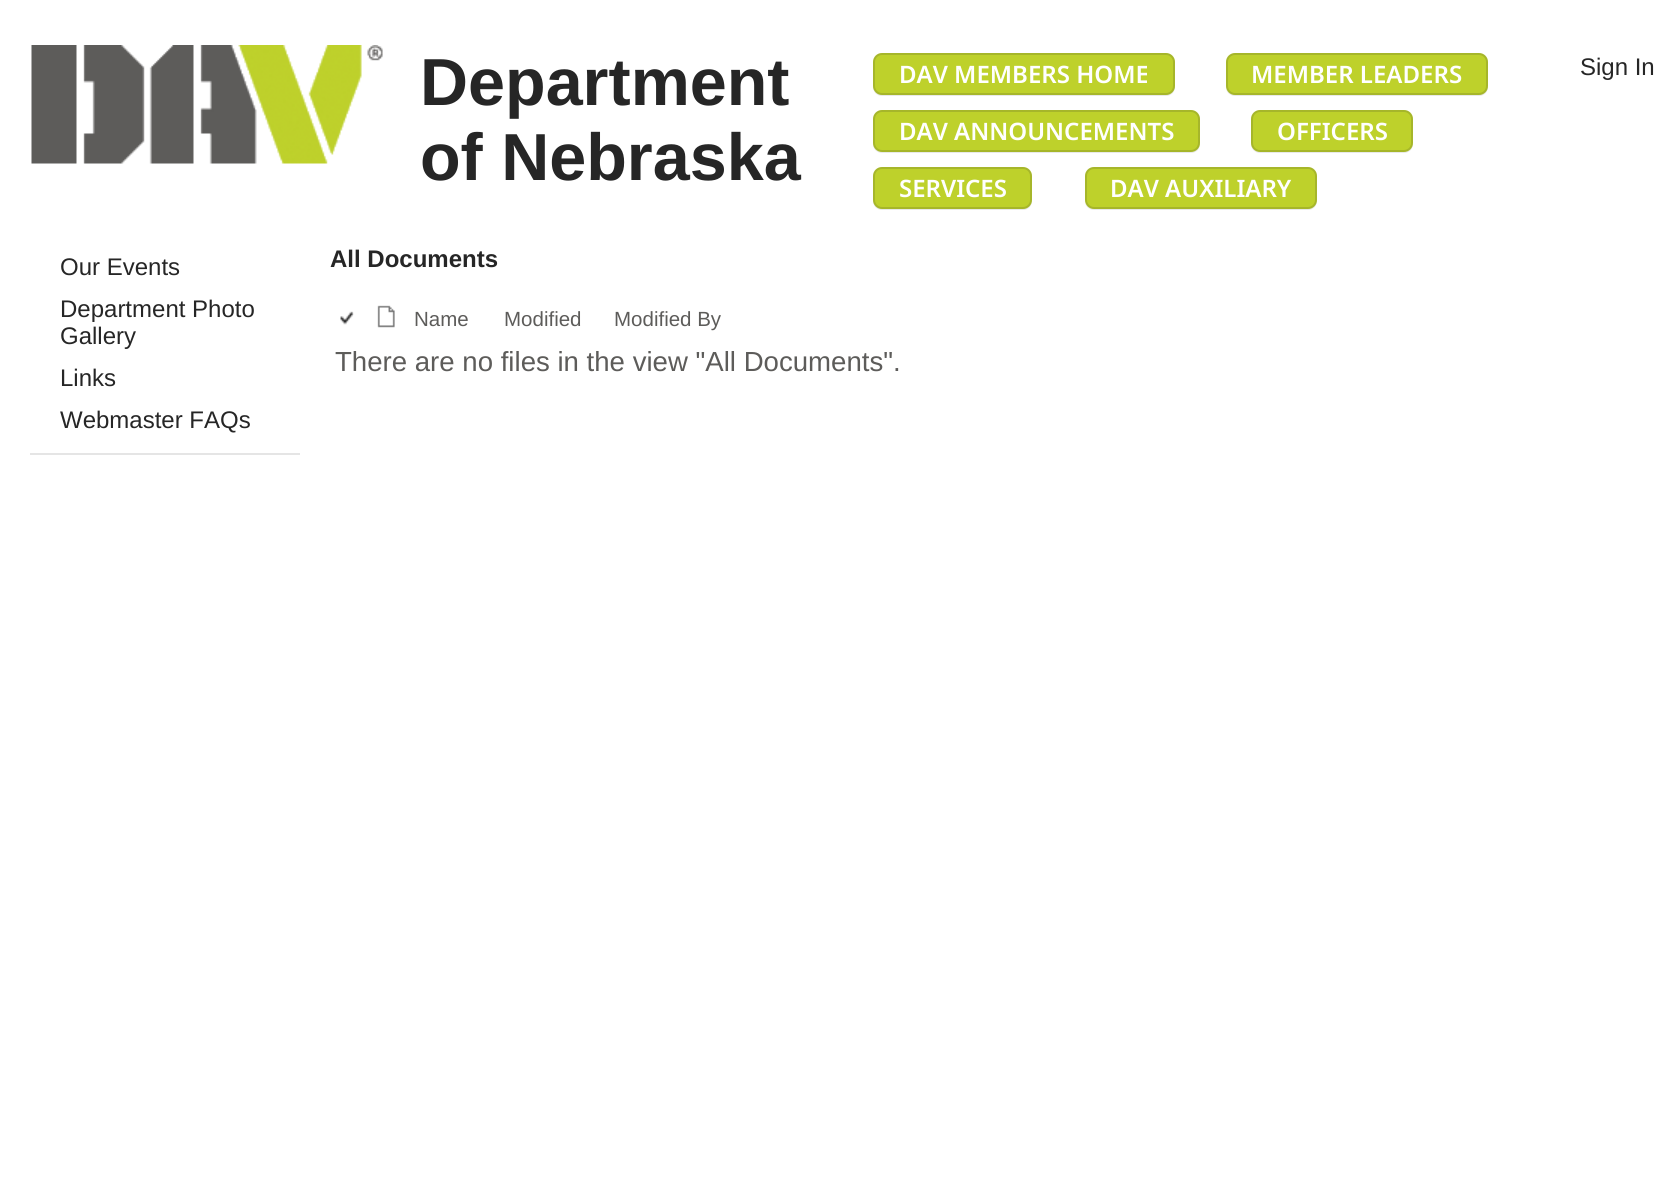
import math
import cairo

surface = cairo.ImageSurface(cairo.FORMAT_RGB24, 1679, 1200)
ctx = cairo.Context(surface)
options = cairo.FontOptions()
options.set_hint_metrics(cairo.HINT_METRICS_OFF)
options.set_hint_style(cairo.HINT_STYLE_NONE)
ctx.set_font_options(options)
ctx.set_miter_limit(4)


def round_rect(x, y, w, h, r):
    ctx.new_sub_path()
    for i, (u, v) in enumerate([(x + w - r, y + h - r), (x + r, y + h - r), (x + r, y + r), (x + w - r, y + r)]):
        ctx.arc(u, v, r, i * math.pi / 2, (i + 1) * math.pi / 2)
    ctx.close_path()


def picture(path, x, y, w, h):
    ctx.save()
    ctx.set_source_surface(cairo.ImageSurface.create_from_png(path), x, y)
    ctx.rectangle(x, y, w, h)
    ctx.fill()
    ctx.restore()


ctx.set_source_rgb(1, 1, 1)
ctx.paint()
picture("img1.png", 31, 45, 352, 119)
ctx.select_font_face("Liberation Sans", cairo.FONT_SLANT_NORMAL, cairo.FONT_WEIGHT_BOLD)
ctx.set_font_size(66.5)
ctx.set_source_rgb(0.149, 0.149, 0.149)
ctx.move_to(420, 105)
ctx.show_text("Department")
ctx.move_to(420, 180)
ctx.show_text("of Nebraska")
ctx.set_source_rgb(0.91, 0.914, 0.914)
ctx.new_path()
ctx.move_to(873, 86)
ctx.line_to(873, 87)
ctx.curve_to(873, 92, 877, 96, 882, 96)
ctx.line_to(1166, 96)
ctx.curve_to(1171, 96, 1175, 92, 1175, 87)
ctx.line_to(1175, 63)
ctx.line_to(1174, 59)
ctx.line_to(1174, 86)
ctx.curve_to(1174, 90, 1170, 94, 1166, 94)
ctx.line_to(882, 94)
ctx.curve_to(877, 94, 873, 90, 873, 86)
ctx.close_path()
ctx.fill()
ctx.set_source_rgb(0.745, 0.82, 0.169)
round_rect(873, 53, 302, 42, 9)
ctx.fill()
round_rect(874, 54, 300, 40, 8)
ctx.set_source_rgba(0.106, 0.122, 0.137, 0.15)
ctx.stroke()
ctx.select_font_face("Noto Sans SemiBold")
ctx.set_font_size(24)
ctx.set_source_rgb(1, 1, 1)
ctx.move_to(899, 83)
ctx.show_text("DAV MEMBERS HOME")
ctx.set_source_rgb(0.91, 0.914, 0.914)
ctx.new_path()
ctx.move_to(1226, 89)
ctx.curve_to(1227, 93, 1231, 96, 1235, 96)
ctx.line_to(1479, 96)
ctx.curve_to(1484, 96, 1488, 92, 1488, 87)
ctx.line_to(1488, 86)
ctx.curve_to(1488, 90, 1484, 94, 1479, 94)
ctx.line_to(1234, 94)
ctx.curve_to(1231, 94, 1228, 92, 1226, 89)
ctx.close_path()
ctx.fill()
ctx.set_source_rgb(0.745, 0.82, 0.169)
round_rect(1226, 53, 262, 42, 9)
ctx.fill()
round_rect(1227, 54, 260, 40, 8)
ctx.set_source_rgba(0.106, 0.122, 0.137, 0.15)
ctx.stroke()
ctx.set_source_rgb(1, 1, 1)
ctx.move_to(1251, 83)
ctx.show_text("MEMBER LEADERS")
ctx.set_source_rgb(0.91, 0.914, 0.914)
ctx.new_path()
ctx.move_to(873, 142)
ctx.line_to(873, 144)
ctx.curve_to(873, 149, 877, 153, 882, 153)
ctx.line_to(1191, 153)
ctx.curve_to(1196, 153, 1200, 149, 1200, 144)
ctx.line_to(1200, 142)
ctx.curve_to(1200, 147, 1196, 152, 1191, 152)
ctx.line_to(882, 152)
ctx.curve_to(877, 152, 873, 147, 873, 142)
ctx.close_path()
ctx.fill()
ctx.set_source_rgb(0.745, 0.82, 0.169)
round_rect(873, 110, 327, 42, 9)
ctx.fill()
round_rect(874, 111, 325, 40, 8)
ctx.set_source_rgba(0.106, 0.122, 0.137, 0.15)
ctx.stroke()
ctx.set_source_rgb(1, 1, 1)
ctx.move_to(899, 140)
ctx.show_text("DAV ANNOUNCEMENTS")
ctx.set_source_rgb(0.91, 0.914, 0.914)
ctx.new_path()
ctx.move_to(1251, 142)
ctx.line_to(1251, 144)
ctx.curve_to(1251, 149, 1255, 153, 1260, 153)
ctx.line_to(1404, 153)
ctx.curve_to(1409, 153, 1413, 149, 1413, 144)
ctx.line_to(1413, 142)
ctx.curve_to(1413, 147, 1409, 152, 1404, 152)
ctx.line_to(1260, 152)
ctx.curve_to(1255, 152, 1251, 147, 1251, 142)
ctx.close_path()
ctx.fill()
ctx.set_source_rgb(0.745, 0.82, 0.169)
round_rect(1251, 110, 162, 42, 9)
ctx.fill()
round_rect(1252, 111, 160, 40, 8)
ctx.set_source_rgba(0.106, 0.122, 0.137, 0.15)
ctx.stroke()
ctx.set_source_rgb(1, 1, 1)
ctx.move_to(1277, 140)
ctx.show_text("OFFICERS")
ctx.set_source_rgb(0.91, 0.914, 0.914)
ctx.new_path()
ctx.move_to(873, 200)
ctx.line_to(873, 201)
ctx.curve_to(873, 206, 877, 210, 882, 210)
ctx.line_to(1023, 210)
ctx.curve_to(1028, 210, 1032, 206, 1032, 201)
ctx.line_to(1032, 200)
ctx.curve_to(1032, 204, 1028, 208, 1023, 208)
ctx.line_to(882, 208)
ctx.curve_to(877, 208, 873, 204, 873, 200)
ctx.close_path()
ctx.fill()
ctx.set_source_rgb(0.745, 0.82, 0.169)
round_rect(873, 167, 159, 42, 9)
ctx.fill()
round_rect(874, 168, 157, 40, 8)
ctx.set_source_rgba(0.106, 0.122, 0.137, 0.15)
ctx.stroke()
ctx.set_source_rgb(1, 1, 1)
ctx.move_to(899, 197)
ctx.show_text("SERVICES")
ctx.set_source_rgb(0.91, 0.914, 0.914)
ctx.new_path()
ctx.move_to(1085, 203)
ctx.curve_to(1086, 207, 1090, 210, 1094, 210)
ctx.line_to(1308, 210)
ctx.curve_to(1313, 210, 1317, 206, 1317, 201)
ctx.line_to(1317, 200)
ctx.curve_to(1317, 204, 1313, 208, 1308, 208)
ctx.line_to(1094, 208)
ctx.curve_to(1090, 208, 1087, 206, 1085, 203)
ctx.close_path()
ctx.fill()
ctx.set_source_rgb(0.745, 0.82, 0.169)
round_rect(1085, 167, 232, 42, 9)
ctx.fill()
round_rect(1086, 168, 230, 40, 8)
ctx.set_source_rgba(0.106, 0.122, 0.137, 0.15)
ctx.stroke()
ctx.set_source_rgb(1, 1, 1)
ctx.move_to(1110, 197)
ctx.show_text("DAV AUXILIARY")
ctx.select_font_face("Liberation Sans")
ctx.set_source_rgb(0.149, 0.149, 0.149)
ctx.move_to(1580, 75)
ctx.show_text("Sign In")
ctx.move_to(60, 275)
ctx.show_text("Our Events")
ctx.move_to(60, 317)
ctx.show_text("Department Photo")
ctx.move_to(60, 344)
ctx.show_text("Gallery")
ctx.move_to(60, 386)
ctx.show_text("Links")
ctx.move_to(60, 428)
ctx.show_text("Webmaster FAQs")
ctx.set_source_rgb(0.898, 0.898, 0.898)
ctx.rectangle(30, 453, 270, 2)
ctx.fill()
ctx.select_font_face("Liberation Sans", cairo.FONT_SLANT_NORMAL, cairo.FONT_WEIGHT_BOLD)
ctx.set_source_rgb(0.149, 0.149, 0.149)
ctx.move_to(330, 267)
ctx.show_text("All Documents")
picture("img2.png", 340, 311, 14, 14)
picture("img3.png", 377, 305, 18, 23)
ctx.select_font_face("Liberation Sans")
ctx.set_font_size(20.5)
ctx.set_source_rgb(0.365, 0.361, 0.353)
ctx.move_to(414, 326)
ctx.show_text("Name")
ctx.move_to(504, 326)
ctx.show_text("Modified")
ctx.move_to(614, 326)
ctx.show_text("Modified By")
ctx.set_font_size(27.6)
ctx.move_to(335, 371)
ctx.show_text("There are no files in the view \"All Documents\".")
surface.write_to_png("page.png")
